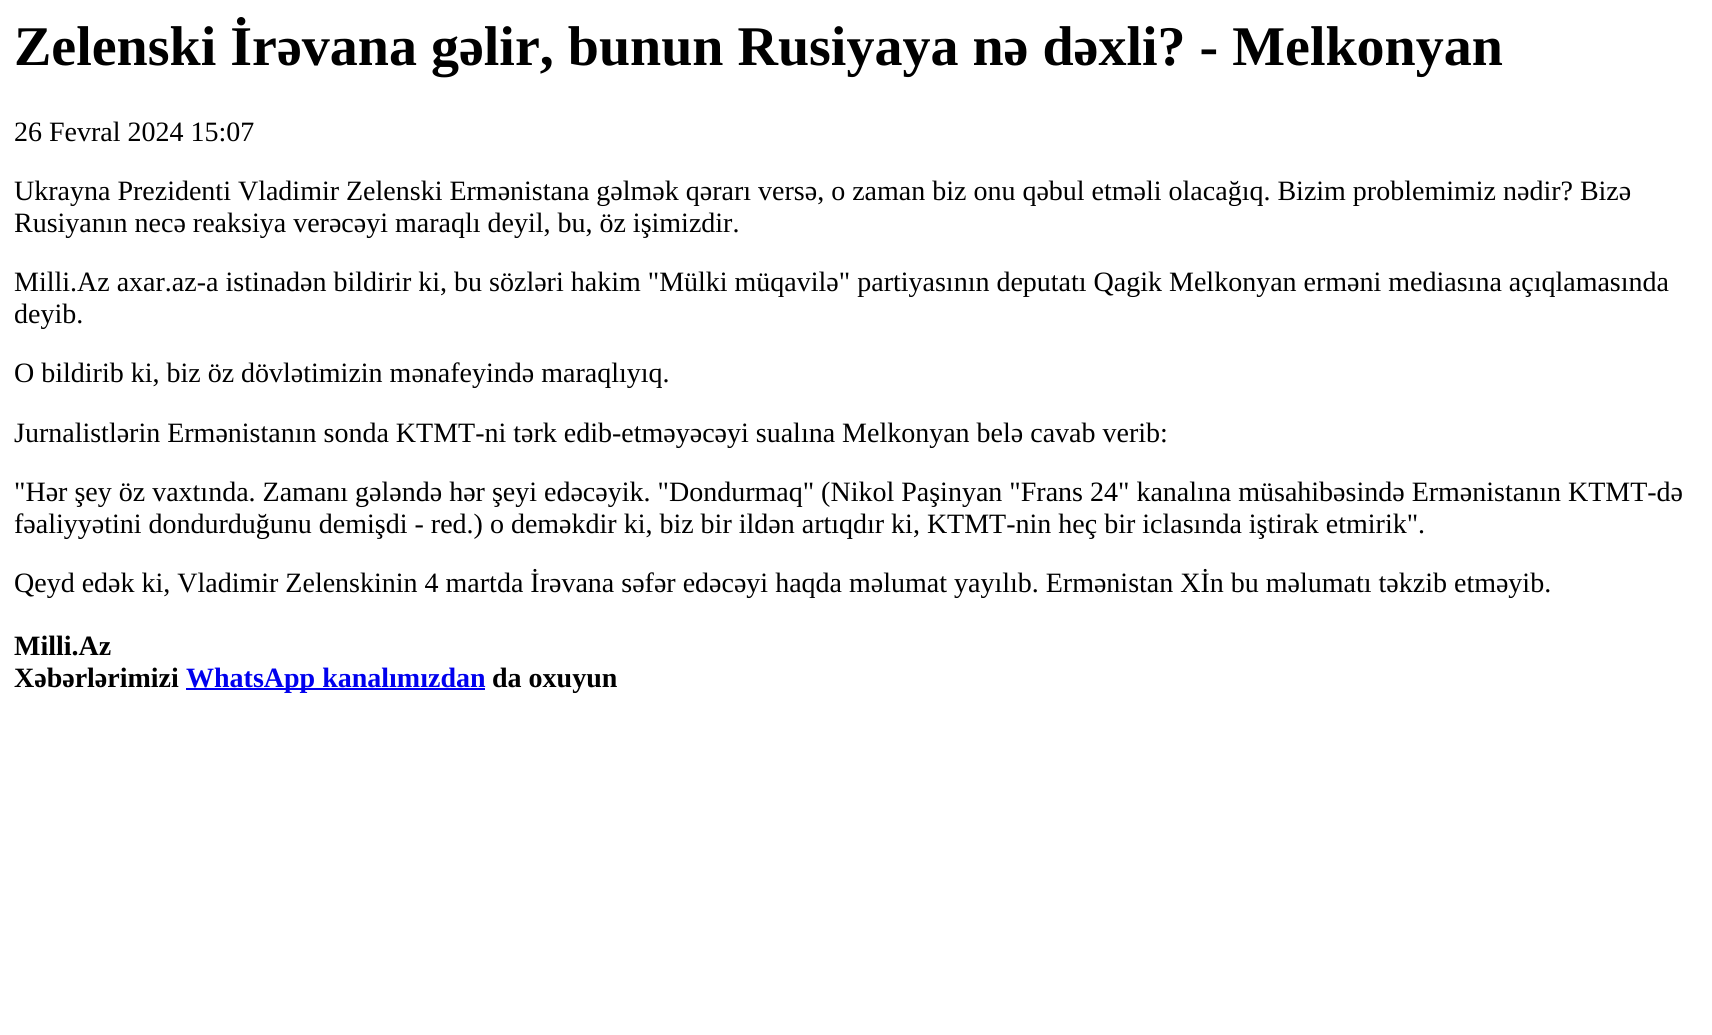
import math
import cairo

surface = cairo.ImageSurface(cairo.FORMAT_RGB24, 1712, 1035)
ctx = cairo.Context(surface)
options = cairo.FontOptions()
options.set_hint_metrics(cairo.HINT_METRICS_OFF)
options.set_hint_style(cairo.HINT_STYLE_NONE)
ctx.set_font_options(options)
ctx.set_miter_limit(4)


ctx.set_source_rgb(1, 1, 1)
ctx.paint()
ctx.select_font_face("Liberation Serif", cairo.FONT_SLANT_NORMAL, cairo.FONT_WEIGHT_BOLD)
ctx.set_font_size(56)
ctx.set_source_rgb(0, 0, 0)
ctx.move_to(14, 65)
ctx.show_text("Zelenski İrəvana gəlir, bunun Rusiyaya nə dəxli? - Melkonyan")
ctx.select_font_face("Liberation Serif")
ctx.set_font_size(28)
ctx.move_to(14, 141)
ctx.show_text("26 Fevral 2024 15:07")
ctx.move_to(14, 200)
ctx.show_text("Ukrayna Prezidenti Vladimir Zelenski Ermənistana gəlmək qərarı versə, o zaman biz onu qəbul etməli olacağıq. Bizim problemimiz nədir? Bizə")
ctx.move_to(14, 232)
ctx.show_text("Rusiyanın necə reaksiya verəcəyi maraqlı deyil, bu, öz işimizdir.")
ctx.move_to(14, 291)
ctx.show_text("Milli.Az axar.az-a istinadən bildirir ki, bu sözləri hakim \"Mülki müqavilə\" partiyasının deputatı Qagik Melkonyan erməni mediasına açıqlamasında")
ctx.move_to(14, 323)
ctx.show_text("deyib.")
ctx.move_to(14, 382)
ctx.show_text("O bildirib ki, biz öz dövlətimizin mənafeyində maraqlıyıq.")
ctx.move_to(14, 442)
ctx.show_text("Jurnalistlərin Ermənistanın sonda KTMT-ni tərk edib-etməyəcəyi sualına Melkonyan belə cavab verib:")
ctx.move_to(14, 501)
ctx.show_text("\"Hər şey öz vaxtında. Zamanı gələndə hər şeyi edəcəyik. \"Dondurmaq\" (Nikol Paşinyan \"Frans 24\" kanalına müsahibəsində Ermənistanın KTMT-də")
ctx.move_to(14, 533)
ctx.show_text("fəaliyyətini dondurduğunu demişdi - red.) o deməkdir ki, biz bir ildən artıqdır ki, KTMT-nin heç bir iclasında iştirak etmirik\".")
ctx.move_to(14, 592)
ctx.show_text("Qeyd edək ki, Vladimir Zelenskinin 4 martda İrəvana səfər edəcəyi haqda məlumat yayılıb. Ermənistan Xİn bu məlumatı təkzib etməyib.")
ctx.select_font_face("Liberation Serif", cairo.FONT_SLANT_NORMAL, cairo.FONT_WEIGHT_BOLD)
ctx.move_to(14, 655)
ctx.show_text("Milli.Az")
ctx.move_to(14, 687)
ctx.show_text("Xəbərlərimizi")
ctx.set_source_rgb(0, 0, 0.933)
ctx.rectangle(186, 688, 299, 2)
ctx.fill()
ctx.move_to(186, 687)
ctx.show_text("WhatsApp kanalımızdan")
ctx.set_source_rgb(0, 0, 0)
ctx.move_to(492, 687)
ctx.show_text("da oxuyun")
surface.write_to_png("page.png")
